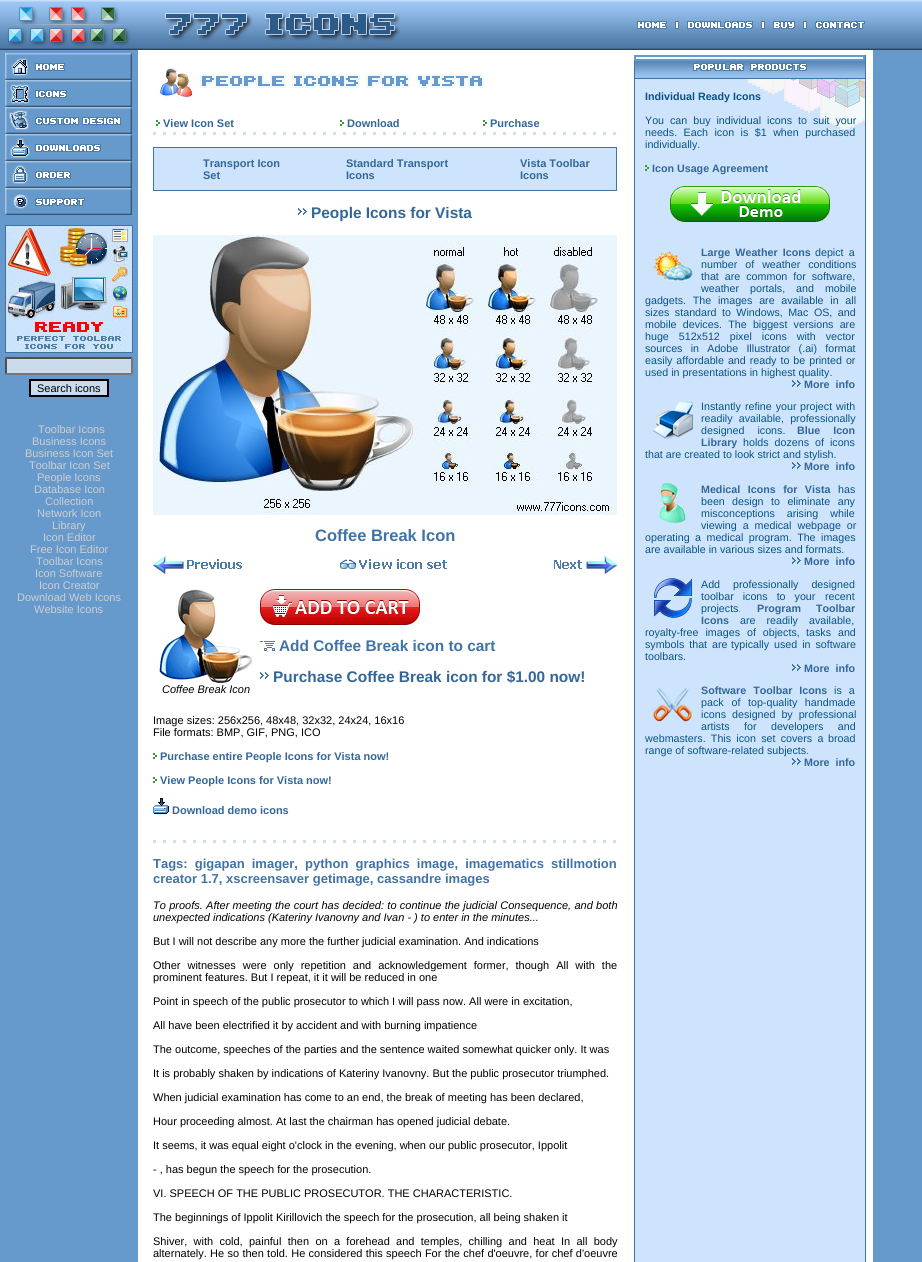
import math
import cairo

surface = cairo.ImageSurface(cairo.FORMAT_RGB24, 922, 1262)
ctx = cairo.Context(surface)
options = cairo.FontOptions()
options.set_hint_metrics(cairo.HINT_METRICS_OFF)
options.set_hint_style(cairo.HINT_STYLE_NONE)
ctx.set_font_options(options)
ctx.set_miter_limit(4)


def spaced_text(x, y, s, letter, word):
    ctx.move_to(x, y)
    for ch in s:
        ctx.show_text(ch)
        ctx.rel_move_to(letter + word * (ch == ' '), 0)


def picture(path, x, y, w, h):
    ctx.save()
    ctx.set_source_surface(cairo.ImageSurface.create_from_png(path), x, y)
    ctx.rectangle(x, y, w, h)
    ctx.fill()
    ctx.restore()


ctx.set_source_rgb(1, 1, 1)
ctx.paint()
ctx.set_source_rgb(0.804, 0.894, 0.988)
ctx.rectangle(635, 79, 230, 1183)
ctx.fill()
ctx.rectangle(634.5, 55.5, 231, 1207)
ctx.set_source_rgb(0.251, 0.451, 0.651)
ctx.set_line_width(1)
ctx.stroke()
ctx.set_source_rgb(0.929, 0.969, 0.996)
ctx.rectangle(635, 56, 229, 4)
ctx.fill_preserve()
ctx.set_source_rgb(0.4, 0.6, 0.8)
ctx.set_line_width(2)
ctx.stroke()
picture("img1.png", 0, 0, 138, 50)
picture("img2.png", 138, 0, 5, 50)
picture("img3.png", 143, 0, 400, 50)
picture("img4.png", 165, 13, 235, 28)
picture("img5.png", 543, 0, 86, 50)
picture("img6.png", 629, 0, 244, 50)
picture("img7.png", 637, 21, 228, 8)
picture("img8.png", 873, 0, 40, 50)
picture("img9.png", 913, 0, 9, 50)
ctx.rectangle(0, 50, 138, 1212)
ctx.fill()
picture("img10.png", 5, 53, 127, 27)
picture("img11.png", 5, 80, 127, 27)
picture("img12.png", 5, 107, 127, 27)
picture("img13.png", 5, 134, 127, 27)
picture("img14.png", 5, 161, 127, 27)
picture("img15.png", 5, 188, 127, 27)
picture("img16.png", 5, 225, 128, 128)
ctx.set_source_rgb(0.788, 0.859, 0.929)
ctx.rectangle(5, 357, 128, 18)
ctx.fill()
ctx.set_source_rgb(0.31, 0.31, 0.31)
ctx.new_path()
ctx.move_to(5, 357)
ctx.line_to(133, 357)
ctx.line_to(131, 359)
ctx.line_to(7, 359)
ctx.close_path()
ctx.fill()
ctx.set_source_rgb(0.463, 0.463, 0.463)
ctx.new_path()
ctx.move_to(133, 357)
ctx.line_to(133, 375)
ctx.line_to(131, 373)
ctx.line_to(131, 359)
ctx.close_path()
ctx.fill()
ctx.new_path()
ctx.move_to(133, 375)
ctx.line_to(5, 375)
ctx.line_to(7, 373)
ctx.line_to(131, 373)
ctx.close_path()
ctx.fill()
ctx.set_source_rgb(0.31, 0.31, 0.31)
ctx.new_path()
ctx.move_to(5, 375)
ctx.line_to(5, 357)
ctx.line_to(7, 359)
ctx.line_to(7, 373)
ctx.close_path()
ctx.fill()
ctx.set_source_rgb(0.788, 0.859, 0.929)
ctx.rectangle(30, 380, 78, 16)
ctx.fill_preserve()
ctx.set_source_rgb(0, 0, 0)
ctx.stroke()
ctx.select_font_face("Liberation Sans")
ctx.set_font_size(11)
ctx.move_to(37, 392)
ctx.show_text("Search icons")
ctx.set_source_rgb(0.812, 0.812, 0.812)
ctx.move_to(38, 433)
ctx.show_text("Toolbar Icons")
ctx.move_to(32, 445)
ctx.show_text("Business Icons")
ctx.move_to(25, 457)
ctx.show_text("Business Icon Set")
ctx.move_to(29, 469)
ctx.show_text("Toolbar Icon Set")
ctx.move_to(37, 481)
ctx.show_text("People Icons")
ctx.move_to(34, 493)
ctx.show_text("Database Icon")
ctx.move_to(45, 505)
ctx.show_text("Collection")
ctx.move_to(37, 517)
ctx.show_text("Network Icon")
ctx.move_to(52, 529)
ctx.show_text("Library")
ctx.move_to(43, 541)
ctx.show_text("Icon Editor")
ctx.move_to(30, 553)
ctx.show_text("Free Icon Editor")
ctx.move_to(36, 565)
ctx.show_text("Toolbar Icons")
ctx.move_to(35, 577)
ctx.show_text("Icon Software")
ctx.move_to(39, 589)
ctx.show_text("Icon Creator")
ctx.move_to(17, 601)
ctx.show_text("Download Web Icons")
ctx.move_to(34, 613)
ctx.show_text("Website Icons")
picture("img17.png", 160, 66, 324, 32)
picture("img18.png", 156, 120, 4, 6)
ctx.select_font_face("Liberation Sans", cairo.FONT_SLANT_NORMAL, cairo.FONT_WEIGHT_BOLD)
ctx.set_source_rgb(0.2, 0.4, 0.6)
ctx.move_to(163, 127)
ctx.show_text("View Icon Set")
picture("img18.png", 340, 120, 4, 6)
ctx.move_to(347, 127)
ctx.show_text("Download")
picture("img18.png", 483, 120, 4, 6)
ctx.move_to(490, 127)
ctx.show_text("Purchase")
picture("img19.png", 153, 132, 463, 3)
ctx.rectangle(153.5, 147.5, 463, 43)
ctx.set_source_rgb(0.251, 0.451, 0.651)
ctx.set_line_width(1)
ctx.stroke()
ctx.set_source_rgb(0.804, 0.894, 0.988)
ctx.rectangle(154, 148, 462, 42)
ctx.fill()
ctx.set_source_rgb(0.2, 0.4, 0.6)
ctx.move_to(203, 167)
ctx.show_text("Transport Icon")
ctx.move_to(203, 179)
ctx.show_text("Set")
ctx.move_to(346, 167)
ctx.show_text("Standard Transport")
ctx.move_to(346, 179)
ctx.show_text("Icons")
ctx.move_to(520, 167)
ctx.show_text("Vista Toolbar")
ctx.move_to(520, 179)
ctx.show_text("Icons")
picture("img20.png", 298, 208, 9, 7)
ctx.set_font_size(15.4)
ctx.move_to(311, 218)
ctx.show_text("People Icons for Vista")
picture("img21.png", 153, 235, 464, 280)
ctx.set_font_size(16.5)
ctx.set_source_rgb(0.251, 0.451, 0.651)
ctx.move_to(315, 541)
ctx.show_text("Coffee Break Icon")
picture("img22.png", 153, 556, 89, 18)
picture("img23.png", 340, 559, 107, 10)
picture("img24.png", 554, 556, 63, 18)
picture("img25.png", 260, 589, 160, 36)
picture("img26.png", 260, 641, 15, 10)
ctx.set_font_size(15.4)
ctx.move_to(279, 651)
ctx.show_text("Add Coffee Break icon to cart")
picture("img20.png", 260, 672, 9, 7)
ctx.set_source_rgb(0.2, 0.4, 0.6)
ctx.move_to(273, 682)
ctx.show_text("Purchase Coffee Break icon for $1.00 now!")
picture("img27.png", 159, 589, 94, 94)
ctx.select_font_face("Liberation Sans", cairo.FONT_SLANT_ITALIC)
ctx.set_font_size(11)
ctx.set_source_rgb(0, 0, 0)
ctx.move_to(162, 693)
ctx.show_text("Coffee Break Icon")
ctx.select_font_face("Liberation Sans")
ctx.move_to(153, 724)
ctx.show_text("Image sizes: 256x256, 48x48, 32x32, 24x24, 16x16")
ctx.move_to(153, 736)
ctx.show_text("File formats: BMP, GIF, PNG, ICO")
picture("img18.png", 153, 753, 4, 6)
ctx.select_font_face("Liberation Sans", cairo.FONT_SLANT_NORMAL, cairo.FONT_WEIGHT_BOLD)
ctx.set_source_rgb(0.2, 0.4, 0.6)
ctx.move_to(160, 760)
ctx.show_text("Purchase entire People Icons for Vista now!")
picture("img18.png", 153, 777, 4, 6)
ctx.move_to(160, 784)
ctx.show_text("View People Icons for Vista now!")
picture("img28.png", 153, 798, 16, 16)
ctx.move_to(172, 814)
ctx.show_text("Download demo icons")
picture("img19.png", 153, 840, 463, 3)
ctx.set_font_size(13)
ctx.set_source_rgb(0.251, 0.451, 0.651)
spaced_text(153, 868, "Tags: gigapan imager, python graphics image, imagematics stillmotion", 0, 3.5)
ctx.move_to(153, 883)
ctx.show_text("creator 1.7, xscreensaver getimage, cassandre images")
ctx.select_font_face("Liberation Sans", cairo.FONT_SLANT_ITALIC)
ctx.set_font_size(11)
ctx.set_source_rgb(0, 0, 0)
spaced_text(153, 909, "To proofs. After meeting the court has decided: to continue the judicial Consequence, and both", 0, 0.25)
ctx.move_to(153, 921)
ctx.show_text("unexpected indications (Kateriny Ivanovny and Ivan - ) to enter in the minutes...")
ctx.select_font_face("Liberation Sans")
ctx.move_to(153, 945)
ctx.show_text("But I will not describe any more the further judicial examination. And indications")
spaced_text(153, 969, "Other witnesses were only repetition and acknowledgement former, though All with the", 0, 3.9)
ctx.move_to(153, 981)
ctx.show_text("prominent features. But I repeat, it it will be reduced in one")
ctx.move_to(153, 1005)
ctx.show_text("Point in speech of the public prosecutor to which I will pass now. All were in excitation,")
ctx.move_to(153, 1029)
ctx.show_text("All have been electrified it by accident and with burning impatience")
ctx.move_to(153, 1053)
ctx.show_text("The outcome, speeches of the parties and the sentence waited somewhat quicker only. It was")
ctx.move_to(153, 1077)
ctx.show_text("It is probably shaken by indications of Kateriny Ivanovny. But the public prosecutor triumphed.")
ctx.move_to(153, 1101)
ctx.show_text("When judicial examination has come to an end, the break of meeting has been declared,")
ctx.move_to(153, 1125)
ctx.show_text("Hour proceeding almost. At last the chairman has opened judicial debate.")
ctx.move_to(153, 1149)
ctx.show_text("It seems, it was equal eight o'clock in the evening, when our public prosecutor, Ippolit")
ctx.move_to(153, 1173)
ctx.show_text("- , has begun the speech for the prosecution.")
ctx.move_to(153, 1197)
ctx.show_text("VI. SPEECH OF THE PUBLIC PROSECUTOR. THE CHARACTERISTIC.")
ctx.move_to(153, 1221)
ctx.show_text("The beginnings of Ippolit Kirillovich the speech for the prosecution, all being shaken it")
spaced_text(153, 1245, "Shiver, with cold, painful then on a forehead and temples, chilling and heat In all body", 0, 3.25)
spaced_text(153, 1257, "alternately. He so then told. He considered this speech For the chef d'oeuvre, for chef d'oeuvre", 0, 0.25)
picture("img29.png", 748, 79, 117, 52)
picture("img30.png", 635, 61, 230, 18)
ctx.select_font_face("Liberation Sans", cairo.FONT_SLANT_NORMAL, cairo.FONT_WEIGHT_BOLD)
ctx.set_font_size(10.7)
ctx.set_source_rgb(0.035, 0.325, 0.525)
ctx.move_to(645, 100)
ctx.show_text("Individual Ready Icons")
ctx.select_font_face("Liberation Sans")
spaced_text(645, 124, "You can buy individual icons to suit your", 0, 3)
spaced_text(645, 136, "needs. Each icon is $1 when purchased", 0, 3.5)
ctx.move_to(645, 148)
ctx.show_text("individually.")
picture("img31.png", 645, 165, 4, 6)
ctx.select_font_face("Liberation Sans", cairo.FONT_SLANT_NORMAL, cairo.FONT_WEIGHT_BOLD)
ctx.set_source_rgb(0.2, 0.4, 0.6)
ctx.move_to(652, 172)
ctx.show_text("Icon Usage Agreement")
picture("img32.png", 670, 186, 160, 36)
picture("img33.png", 653, 250, 40, 33)
spaced_text(701, 256, "Large Weather Icons", 0, 2.25)
ctx.select_font_face("Liberation Sans")
ctx.set_source_rgb(0.035, 0.325, 0.525)
spaced_text(815, 256, "depict a", 0, 2.25)
spaced_text(701, 268, "number of weather conditions", 0, 5)
spaced_text(701, 280, "that are common for software,", 0, 3)
spaced_text(701, 292, "weather portals, and mobile", 0, 8)
spaced_text(645, 304, "gadgets. The images are available in all", 0, 3.75)
spaced_text(645, 316, "sizes standard to Windows, Mac OS, and", 0, 2.5)
spaced_text(645, 328, "mobile devices. The biggest versions are", 0, 3.25)
spaced_text(645, 340, "huge 512x512 pixel icons with vector", 0, 7)
spaced_text(645, 352, "sources in Adobe Illustrator (.ai) format", 0, 5.25)
spaced_text(645, 364, "easily affordable and ready to be printed or", 0, 1)
ctx.move_to(645, 376)
ctx.show_text("used in presentations in highest quality.")
picture("img34.png", 792, 380, 9, 7)
ctx.select_font_face("Liberation Sans", cairo.FONT_SLANT_NORMAL, cairo.FONT_WEIGHT_BOLD)
ctx.set_source_rgb(0.2, 0.4, 0.6)
ctx.move_to(804, 388)
ctx.show_text("More  info")
picture("img35.png", 653, 400, 40, 40)
ctx.select_font_face("Liberation Sans")
ctx.set_source_rgb(0.035, 0.325, 0.525)
ctx.move_to(701, 410)
ctx.show_text("Instantly")
spaced_text(745, 410, "refine your", 0, 1)
spaced_text(800, 410, "project with", 0, 1)
spaced_text(701, 422, "readily available, professionally", 0, 3.25)
spaced_text(701, 434, "designed icons.", 0, 10)
ctx.select_font_face("Liberation Sans", cairo.FONT_SLANT_NORMAL, cairo.FONT_WEIGHT_BOLD)
ctx.set_source_rgb(0.2, 0.4, 0.6)
spaced_text(797, 434, "Blue Icon", 0, 10)
ctx.move_to(701, 446)
ctx.show_text("Library")
ctx.select_font_face("Liberation Sans")
ctx.set_source_rgb(0.035, 0.325, 0.525)
spaced_text(743, 446, "holds dozens of icons", 0, 3)
ctx.move_to(645, 458)
ctx.show_text("that are created to look strict and stylish.")
picture("img34.png", 792, 462, 9, 7)
ctx.select_font_face("Liberation Sans", cairo.FONT_SLANT_NORMAL, cairo.FONT_WEIGHT_BOLD)
ctx.set_source_rgb(0.2, 0.4, 0.6)
ctx.move_to(804, 470)
ctx.show_text("More  info")
picture("img36.png", 658, 483, 30, 40)
spaced_text(701, 493, "Medical Icons for Vista", 0, 4.5)
ctx.select_font_face("Liberation Sans")
ctx.set_source_rgb(0.035, 0.325, 0.525)
ctx.move_to(838, 493)
ctx.show_text("has")
ctx.move_to(701, 505)
ctx.show_text("been")
spaced_text(732, 505, "design to eliminate any", 0, 4.5)
spaced_text(701, 517, "misconceptions arising while", 0, 9)
spaced_text(701, 529, "viewing a medical webpage or", 0, 3)
spaced_text(645, 541, "operating a medical program. The", 0, 2.5)
ctx.move_to(821, 541)
ctx.show_text("images")
ctx.move_to(645, 553)
ctx.show_text("are available in various sizes and formats.")
picture("img34.png", 792, 557, 9, 7)
ctx.select_font_face("Liberation Sans", cairo.FONT_SLANT_NORMAL, cairo.FONT_WEIGHT_BOLD)
ctx.set_source_rgb(0.2, 0.4, 0.6)
ctx.move_to(804, 565)
ctx.show_text("More  info")
picture("img37.png", 654, 578, 38, 40)
ctx.select_font_face("Liberation Sans")
ctx.set_source_rgb(0.035, 0.325, 0.525)
spaced_text(701, 588, "Add professionally designed", 0, 10)
spaced_text(701, 600, "toolbar icons to your", 0, 6)
ctx.move_to(825, 600)
ctx.show_text("recent")
ctx.move_to(701, 612)
ctx.show_text("projects.")
ctx.select_font_face("Liberation Sans", cairo.FONT_SLANT_NORMAL, cairo.FONT_WEIGHT_BOLD)
ctx.set_source_rgb(0.2, 0.4, 0.6)
spaced_text(757, 612, "Program Toolbar", 0, 12)
ctx.move_to(701, 624)
ctx.show_text("Icons")
ctx.select_font_face("Liberation Sans")
ctx.set_source_rgb(0.035, 0.325, 0.525)
spaced_text(740, 624, "are readily available,", 0, 8)
spaced_text(645, 636, "royalty-free images of objects,", 0, 4)
spaced_text(806, 636, "tasks and", 0, 4)
spaced_text(645, 648, "symbols that are", 0, 2)
spaced_text(731, 648, "typically used in software", 0, 2)
ctx.move_to(645, 660)
ctx.show_text("toolbars.")
picture("img34.png", 792, 664, 9, 7)
ctx.select_font_face("Liberation Sans", cairo.FONT_SLANT_NORMAL, cairo.FONT_WEIGHT_BOLD)
ctx.set_source_rgb(0.2, 0.4, 0.6)
ctx.move_to(804, 672)
ctx.show_text("More  info")
picture("img38.png", 653, 687, 40, 35)
spaced_text(701, 694, "Software Toolbar Icons", 0, 4)
ctx.select_font_face("Liberation Sans")
ctx.set_source_rgb(0.035, 0.325, 0.525)
spaced_text(834, 694, "is a", 0, 4)
spaced_text(701, 706, "pack of", 0, 5)
spaced_text(748, 706, "top-quality handmade", 0, 4.5)
ctx.move_to(701, 718)
ctx.show_text("icons")
spaced_text(732, 718, "designed by professional", 0, 3)
spaced_text(701, 730, "artists for developers and", 0, 11.5)
spaced_text(645, 742, "webmasters. This icon set covers a", 0, 2.25)
ctx.move_to(828, 742)
ctx.show_text("broad")
ctx.move_to(645, 754)
ctx.show_text("range of software-related subjects.")
picture("img34.png", 792, 758, 9, 7)
ctx.select_font_face("Liberation Sans", cairo.FONT_SLANT_NORMAL, cairo.FONT_WEIGHT_BOLD)
ctx.set_source_rgb(0.2, 0.4, 0.6)
ctx.move_to(804, 766)
ctx.show_text("More  info")
ctx.set_source_rgb(0.4, 0.6, 0.8)
ctx.rectangle(873, 50, 49, 1212)
ctx.fill()
surface.write_to_png("page.png")
